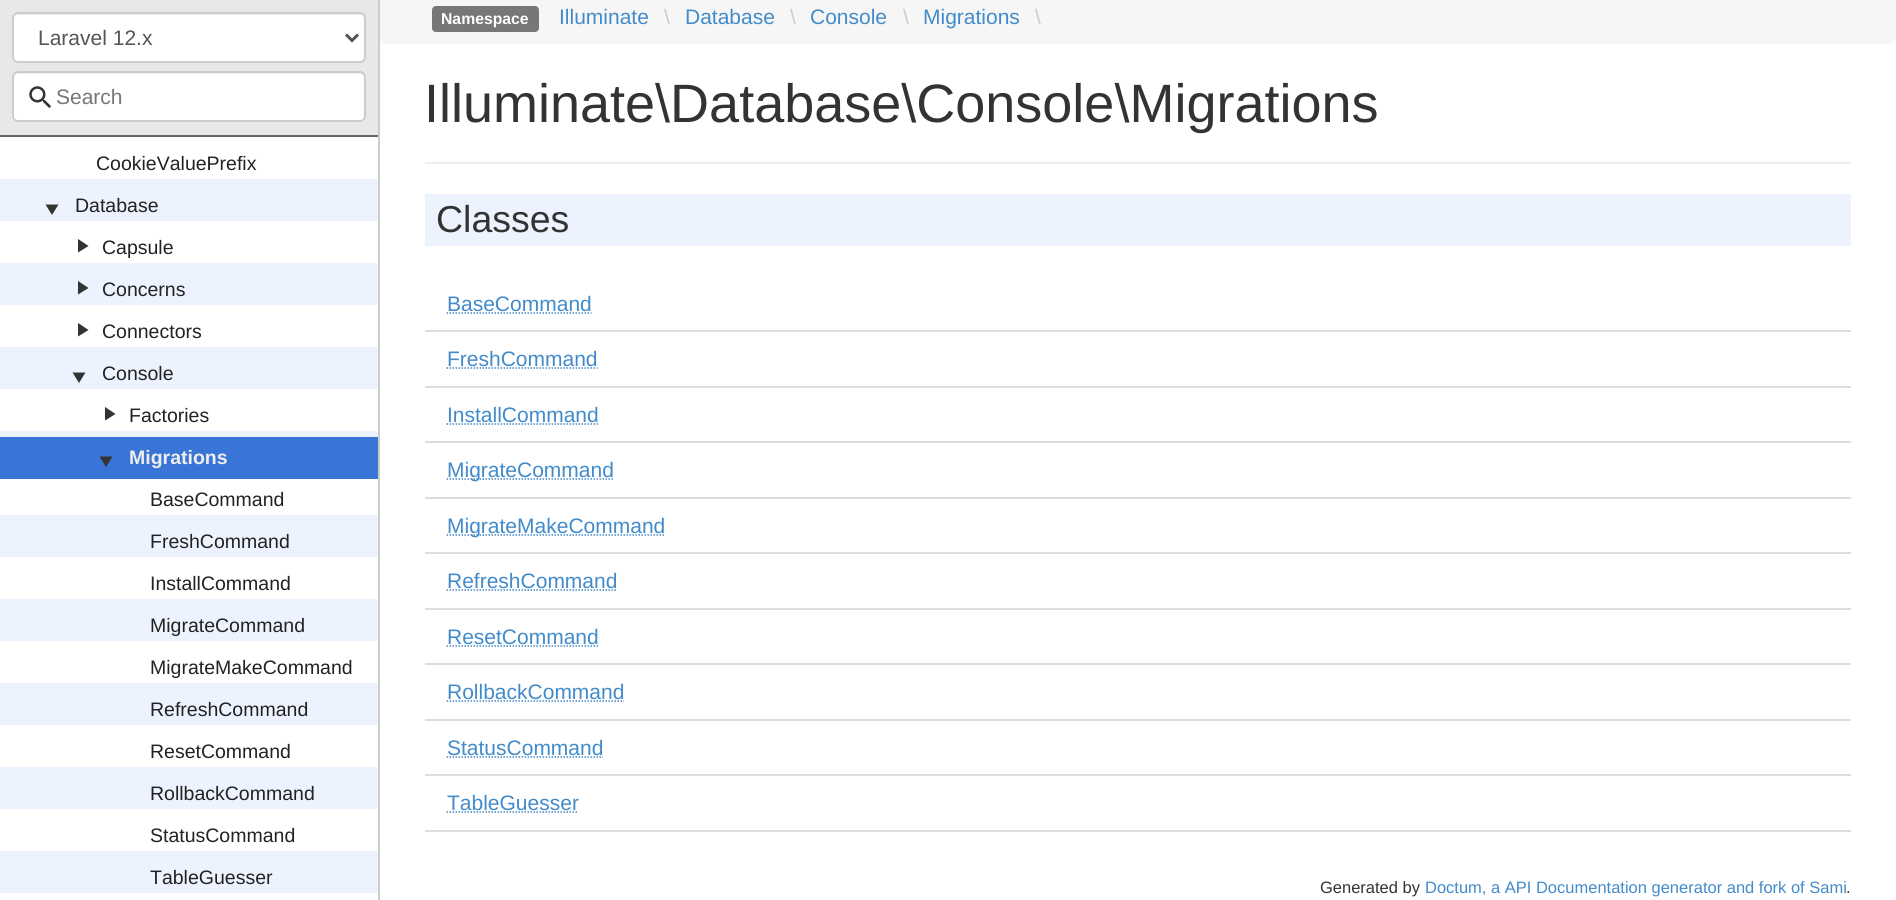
import math
import cairo

surface = cairo.ImageSurface(cairo.FORMAT_RGB24, 1896, 900)
ctx = cairo.Context(surface)
options = cairo.FontOptions()
options.set_hint_metrics(cairo.HINT_METRICS_OFF)
options.set_hint_style(cairo.HINT_STYLE_NONE)
ctx.set_font_options(options)
ctx.set_miter_limit(4)


def round_rect(x, y, w, h, r):
    ctx.new_sub_path()
    for i, (u, v) in enumerate([(x + w - r, y + h - r), (x + r, y + h - r), (x + r, y + r), (x + w - r, y + r)]):
        ctx.arc(u, v, r, i * math.pi / 2, (i + 1) * math.pi / 2)
    ctx.close_path()


def picture(path, x, y, w, h):
    ctx.save()
    ctx.set_source_surface(cairo.ImageSurface.create_from_png(path), x, y)
    ctx.rectangle(x, y, w, h)
    ctx.fill()
    ctx.restore()


ctx.set_source_rgb(1, 1, 1)
ctx.paint()
ctx.set_source_rgb(0.8, 0.8, 0.8)
ctx.rectangle(378, 0, 2, 900)
ctx.fill()
ctx.set_source_rgb(0.91, 0.91, 0.91)
ctx.rectangle(0, 0, 378, 135)
ctx.fill()
ctx.set_source_rgb(0.4, 0.4, 0.4)
ctx.rectangle(0, 135, 378, 2)
ctx.fill()
ctx.set_source_rgb(1, 1, 1)
round_rect(12, 12, 354, 51, 6)
ctx.fill()
ctx.set_source_rgb(0.925, 0.925, 0.925)
ctx.new_path()
ctx.move_to(18, 15)
ctx.line_to(360, 15)
ctx.curve_to(362, 15, 364, 17, 364, 20)
ctx.line_to(364, 58)
ctx.line_to(363, 61)
ctx.curve_to(364, 60, 365, 58, 365, 57)
ctx.line_to(365, 19)
ctx.curve_to(365, 16, 363, 14, 360, 14)
ctx.line_to(19, 14)
ctx.curve_to(16, 14, 14, 16, 14, 19)
ctx.line_to(14, 20)
ctx.curve_to(14, 17, 16, 15, 18, 15)
ctx.close_path()
ctx.fill()
round_rect(13, 13, 352, 49, 5)
ctx.set_source_rgb(0.8, 0.8, 0.8)
ctx.stroke()
ctx.new_path()
ctx.move_to(346, 34.5)
ctx.line_to(352, 40.5)
ctx.line_to(358, 34.5)
ctx.set_source_rgb(0.333, 0.333, 0.333)
ctx.set_line_width(3)
ctx.stroke()
ctx.select_font_face("Liberation Sans")
ctx.set_font_size(21)
ctx.move_to(38, 45)
ctx.show_text("Laravel 12.x")
ctx.set_source_rgb(1, 1, 1)
round_rect(12, 71, 354, 51, 6)
ctx.fill()
ctx.set_source_rgb(0.925, 0.925, 0.925)
ctx.new_path()
ctx.move_to(18, 74)
ctx.line_to(360, 74)
ctx.curve_to(362, 74, 364, 76, 364, 78)
ctx.line_to(364, 118)
ctx.curve_to(365, 117, 365, 116, 365, 115)
ctx.line_to(365, 77)
ctx.curve_to(365, 74, 363, 72, 360, 72)
ctx.line_to(19, 72)
ctx.curve_to(16, 72, 14, 74, 14, 77)
ctx.line_to(14, 78)
ctx.curve_to(14, 76, 16, 74, 18, 74)
ctx.close_path()
ctx.fill()
round_rect(13, 72, 352, 49, 5)
ctx.set_source_rgb(0.8, 0.8, 0.8)
ctx.set_line_width(2)
ctx.stroke()
picture("img1.png", 29, 86, 22, 22)
ctx.set_source_rgb(0.467, 0.467, 0.467)
ctx.move_to(56, 104)
ctx.show_text("Search")
ctx.set_source_rgb(0.929, 0.953, 0.996)
ctx.rectangle(0, 179, 378, 42)
ctx.fill()
ctx.rectangle(0, 263, 378, 42)
ctx.fill()
ctx.rectangle(0, 347, 378, 42)
ctx.fill()
ctx.rectangle(0, 431, 378, 6)
ctx.fill()
ctx.rectangle(0, 515, 378, 42)
ctx.fill()
ctx.rectangle(0, 599, 378, 42)
ctx.fill()
ctx.rectangle(0, 683, 378, 42)
ctx.fill()
ctx.rectangle(0, 767, 378, 42)
ctx.fill()
ctx.rectangle(0, 851, 378, 42)
ctx.fill()
ctx.set_font_size(19.5)
ctx.set_source_rgb(0.133, 0.133, 0.133)
ctx.move_to(96, 170)
ctx.show_text("CookieValuePrefix")
ctx.set_source_rgb(0.2, 0.2, 0.2)
ctx.new_path()
ctx.move_to(58.5, 204.5)
ctx.line_to(45.5, 204.5)
ctx.line_to(52, 215)
ctx.close_path()
ctx.fill()
ctx.set_source_rgb(0.133, 0.133, 0.133)
ctx.move_to(75, 212)
ctx.show_text("Database")
ctx.set_source_rgb(0.2, 0.2, 0.2)
ctx.new_path()
ctx.move_to(78, 239)
ctx.line_to(78, 252.5)
ctx.line_to(88.5, 246)
ctx.close_path()
ctx.fill()
ctx.set_source_rgb(0.133, 0.133, 0.133)
ctx.move_to(102, 254)
ctx.show_text("Capsule")
ctx.set_source_rgb(0.2, 0.2, 0.2)
ctx.new_path()
ctx.move_to(78, 281)
ctx.line_to(78, 294.5)
ctx.line_to(88.5, 288)
ctx.close_path()
ctx.fill()
ctx.set_source_rgb(0.133, 0.133, 0.133)
ctx.move_to(102, 296)
ctx.show_text("Concerns")
ctx.set_source_rgb(0.2, 0.2, 0.2)
ctx.new_path()
ctx.move_to(78, 323)
ctx.line_to(78, 336.5)
ctx.line_to(88.5, 330)
ctx.close_path()
ctx.fill()
ctx.set_source_rgb(0.133, 0.133, 0.133)
ctx.move_to(102, 338)
ctx.show_text("Connectors")
ctx.set_source_rgb(0.2, 0.2, 0.2)
ctx.new_path()
ctx.move_to(85.5, 372.5)
ctx.line_to(72.5, 372.5)
ctx.line_to(79, 383)
ctx.close_path()
ctx.fill()
ctx.set_source_rgb(0.133, 0.133, 0.133)
ctx.move_to(102, 380)
ctx.show_text("Console")
ctx.set_source_rgb(0.2, 0.2, 0.2)
ctx.new_path()
ctx.move_to(105, 407)
ctx.line_to(105, 420.5)
ctx.line_to(115.5, 414)
ctx.close_path()
ctx.fill()
ctx.set_source_rgb(0.133, 0.133, 0.133)
ctx.move_to(129, 422)
ctx.show_text("Factories")
ctx.set_source_rgb(0.22, 0.459, 0.843)
ctx.rectangle(0, 437, 378, 42)
ctx.fill()
ctx.set_source_rgb(0.2, 0.2, 0.2)
ctx.new_path()
ctx.move_to(112.5, 456.5)
ctx.line_to(99.5, 456.5)
ctx.line_to(106, 467)
ctx.close_path()
ctx.fill()
ctx.select_font_face("Liberation Sans", cairo.FONT_SLANT_NORMAL, cairo.FONT_WEIGHT_BOLD)
ctx.set_source_rgb(0.933, 0.933, 0.933)
ctx.move_to(129, 464)
ctx.show_text("Migrations")
ctx.select_font_face("Liberation Sans")
ctx.set_source_rgb(0.133, 0.133, 0.133)
ctx.move_to(150, 506)
ctx.show_text("BaseCommand")
ctx.move_to(150, 548)
ctx.show_text("FreshCommand")
ctx.move_to(150, 590)
ctx.show_text("InstallCommand")
ctx.move_to(150, 632)
ctx.show_text("MigrateCommand")
ctx.move_to(150, 674)
ctx.show_text("MigrateMakeCommand")
ctx.move_to(150, 716)
ctx.show_text("RefreshCommand")
ctx.move_to(150, 758)
ctx.show_text("ResetCommand")
ctx.move_to(150, 800)
ctx.show_text("RollbackCommand")
ctx.move_to(150, 842)
ctx.show_text("StatusCommand")
ctx.move_to(150, 884)
ctx.show_text("TableGuesser")
ctx.set_source_rgb(0.961, 0.961, 0.961)
ctx.new_path()
ctx.move_to(380, -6)
ctx.line_to(1896, -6)
ctx.line_to(1896, 38)
ctx.curve_to(1896, 41.5, 1893.5, 44, 1890, 44)
ctx.line_to(386, 44)
ctx.curve_to(382.5, 44, 380, 41.5, 380, 38)
ctx.close_path()
ctx.fill()
ctx.set_source_rgb(0.467, 0.467, 0.467)
round_rect(432, 6, 107, 26, 4)
ctx.fill()
ctx.select_font_face("Liberation Sans", cairo.FONT_SLANT_NORMAL, cairo.FONT_WEIGHT_BOLD)
ctx.set_font_size(15.75)
ctx.set_source_rgb(1, 1, 1)
ctx.move_to(441, 24)
ctx.show_text("Namespace")
ctx.select_font_face("Liberation Sans")
ctx.set_font_size(21)
ctx.set_source_rgb(0.259, 0.545, 0.792)
ctx.move_to(559, 24)
ctx.show_text("Illuminate")
ctx.set_source_rgb(0.8, 0.8, 0.8)
ctx.move_to(664, 24)
ctx.show_text("\\")
ctx.set_source_rgb(0.259, 0.545, 0.792)
ctx.move_to(685, 24)
ctx.show_text("Database")
ctx.set_source_rgb(0.8, 0.8, 0.8)
ctx.move_to(790, 24)
ctx.show_text("\\")
ctx.set_source_rgb(0.259, 0.545, 0.792)
ctx.move_to(810, 24)
ctx.show_text("Console")
ctx.set_source_rgb(0.8, 0.8, 0.8)
ctx.move_to(903, 24)
ctx.show_text("\\")
ctx.set_source_rgb(0.259, 0.545, 0.792)
ctx.move_to(923, 24)
ctx.show_text("Migrations")
ctx.set_source_rgb(0.8, 0.8, 0.8)
ctx.move_to(1035, 24)
ctx.show_text("\\")
ctx.set_source_rgb(0.933, 0.933, 0.933)
ctx.rectangle(425, 162, 1426, 2)
ctx.fill()
ctx.set_font_size(54)
ctx.set_source_rgb(0.2, 0.2, 0.2)
ctx.move_to(424, 122)
ctx.show_text("Illuminate\\Database\\Console\\Migrations")
ctx.set_source_rgb(0.929, 0.953, 0.996)
ctx.rectangle(425, 194, 1426, 52)
ctx.fill()
ctx.set_font_size(37.5)
ctx.set_source_rgb(0.2, 0.2, 0.2)
ctx.move_to(436, 232)
ctx.show_text("Classes")
ctx.set_source_rgb(0.867, 0.867, 0.867)
ctx.rectangle(425, 330, 1426, 2)
ctx.fill()
ctx.set_font_size(21)
ctx.set_source_rgb(0.259, 0.545, 0.792)
ctx.move_to(447, 311)
ctx.show_text("BaseCommand")
ctx.new_path()
ctx.move_to(446.5, 313)
ctx.line_to(591.5, 313)
ctx.set_line_width(1.5)
ctx.set_dash([1.5, 1.5])
ctx.stroke()
ctx.set_source_rgb(0.867, 0.867, 0.867)
ctx.rectangle(425, 386, 1426, 2)
ctx.fill()
ctx.set_source_rgb(0.259, 0.545, 0.792)
ctx.move_to(447, 366)
ctx.show_text("FreshCommand")
ctx.new_path()
ctx.move_to(446.5, 368)
ctx.line_to(597.5, 368)
ctx.stroke()
ctx.set_source_rgb(0.867, 0.867, 0.867)
ctx.rectangle(425, 441, 1426, 2)
ctx.fill()
ctx.set_source_rgb(0.259, 0.545, 0.792)
ctx.move_to(447, 422)
ctx.show_text("InstallCommand")
ctx.new_path()
ctx.move_to(446.5, 424)
ctx.line_to(598.5, 424)
ctx.stroke()
ctx.set_source_rgb(0.867, 0.867, 0.867)
ctx.rectangle(425, 497, 1426, 2)
ctx.fill()
ctx.new_path()
ctx.move_to(446.5, 479)
ctx.line_to(613.5, 479)
ctx.set_source_rgb(0.259, 0.545, 0.792)
ctx.stroke()
ctx.move_to(447, 477)
ctx.show_text("MigrateCommand")
ctx.set_source_rgb(0.867, 0.867, 0.867)
ctx.rectangle(425, 552, 1426, 2)
ctx.fill()
ctx.new_path()
ctx.move_to(446.5, 535)
ctx.line_to(665, 535)
ctx.set_source_rgb(0.259, 0.545, 0.792)
ctx.stroke()
ctx.move_to(447, 533)
ctx.show_text("MigrateMakeCommand")
ctx.set_source_rgb(0.867, 0.867, 0.867)
ctx.rectangle(425, 608, 1426, 2)
ctx.fill()
ctx.set_source_rgb(0.259, 0.545, 0.792)
ctx.move_to(447, 588)
ctx.show_text("RefreshCommand")
ctx.new_path()
ctx.move_to(446.5, 590)
ctx.line_to(617, 590)
ctx.stroke()
ctx.set_source_rgb(0.867, 0.867, 0.867)
ctx.rectangle(425, 663, 1426, 2)
ctx.fill()
ctx.set_source_rgb(0.259, 0.545, 0.792)
ctx.move_to(447, 644)
ctx.show_text("ResetCommand")
ctx.new_path()
ctx.move_to(446.5, 646)
ctx.line_to(598.5, 646)
ctx.stroke()
ctx.set_source_rgb(0.867, 0.867, 0.867)
ctx.rectangle(425, 719, 1426, 2)
ctx.fill()
ctx.set_source_rgb(0.259, 0.545, 0.792)
ctx.move_to(447, 699)
ctx.show_text("RollbackCommand")
ctx.new_path()
ctx.move_to(446.5, 701)
ctx.line_to(624, 701)
ctx.stroke()
ctx.set_source_rgb(0.867, 0.867, 0.867)
ctx.rectangle(425, 774, 1426, 2)
ctx.fill()
ctx.set_source_rgb(0.259, 0.545, 0.792)
ctx.move_to(447, 755)
ctx.show_text("StatusCommand")
ctx.new_path()
ctx.move_to(446.5, 757)
ctx.line_to(603, 757)
ctx.stroke()
ctx.set_source_rgb(0.867, 0.867, 0.867)
ctx.rectangle(425, 830, 1426, 2)
ctx.fill()
ctx.set_source_rgb(0.259, 0.545, 0.792)
ctx.move_to(447, 810)
ctx.show_text("TableGuesser")
ctx.new_path()
ctx.move_to(446.5, 812)
ctx.line_to(578.5, 812)
ctx.stroke()
ctx.set_font_size(16.5)
ctx.set_source_rgb(0.2, 0.2, 0.2)
ctx.move_to(1320, 893)
ctx.show_text("Generated by")
ctx.set_source_rgb(0.259, 0.545, 0.792)
ctx.move_to(1425, 893)
ctx.show_text("Doctum, a API Documentation generator and fork of Sami")
ctx.set_source_rgb(0.2, 0.2, 0.2)
ctx.move_to(1846, 893)
ctx.show_text(".")
surface.write_to_png("page.png")
